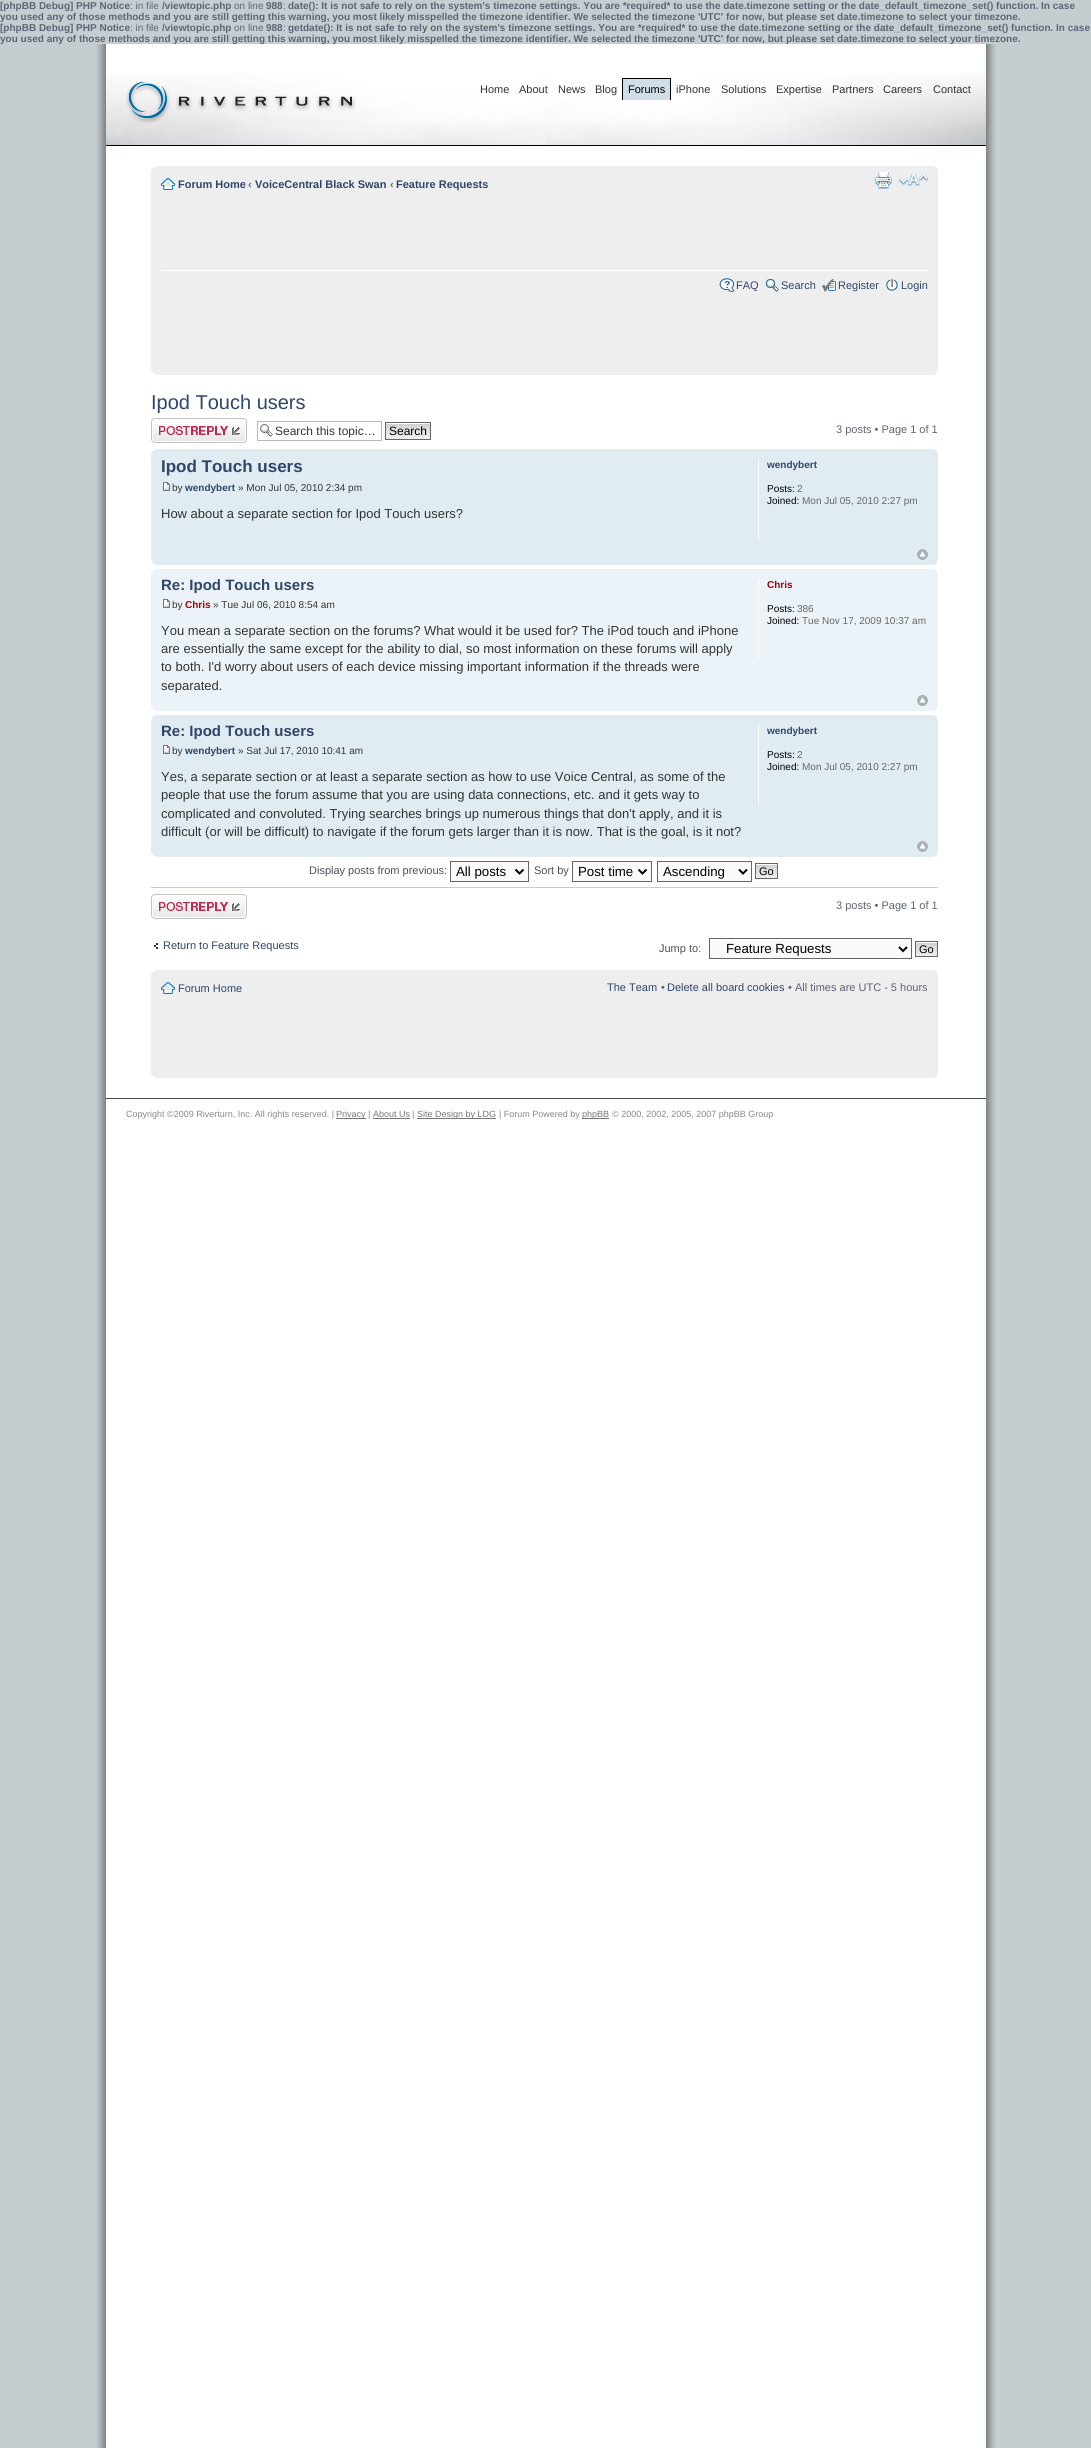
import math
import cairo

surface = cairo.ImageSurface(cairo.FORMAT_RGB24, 1091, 2448)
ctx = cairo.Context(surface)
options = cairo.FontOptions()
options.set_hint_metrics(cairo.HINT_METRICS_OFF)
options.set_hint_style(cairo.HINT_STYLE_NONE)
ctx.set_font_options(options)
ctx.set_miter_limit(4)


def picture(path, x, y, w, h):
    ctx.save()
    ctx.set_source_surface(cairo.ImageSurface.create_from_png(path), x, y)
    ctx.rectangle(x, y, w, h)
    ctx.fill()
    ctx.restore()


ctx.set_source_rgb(0.773, 0.804, 0.816)
ctx.paint()
ctx.select_font_face("Liberation Sans", cairo.FONT_SLANT_NORMAL, cairo.FONT_WEIGHT_BOLD)
ctx.set_font_size(10)
ctx.set_source_rgb(0.373, 0.392, 0.463)
ctx.move_to(0, 9)
ctx.show_text("[phpBB Debug] PHP Notice")
ctx.select_font_face("Liberation Sans")
ctx.move_to(130, 9)
ctx.show_text(": in file")
ctx.select_font_face("Liberation Sans", cairo.FONT_SLANT_NORMAL, cairo.FONT_WEIGHT_BOLD)
ctx.move_to(162, 9)
ctx.show_text("/viewtopic.php")
ctx.select_font_face("Liberation Sans")
ctx.move_to(234, 9)
ctx.show_text("on line")
ctx.select_font_face("Liberation Sans", cairo.FONT_SLANT_NORMAL, cairo.FONT_WEIGHT_BOLD)
ctx.move_to(266, 9)
ctx.show_text("988")
ctx.select_font_face("Liberation Sans")
ctx.move_to(283, 9)
ctx.show_text(":")
ctx.select_font_face("Liberation Sans", cairo.FONT_SLANT_NORMAL, cairo.FONT_WEIGHT_BOLD)
ctx.move_to(288, 9)
ctx.show_text("date(): It is not safe to rely on the system's timezone settings. You are *required* to use the date.timezone setting or the date_default_timezone_set() function. In case")
ctx.move_to(0, 20)
ctx.show_text("you used any of those methods and you are still getting this warning, you most likely misspelled the timezone identifier. We selected the timezone 'UTC' for now, but please set date.timezone to select your timezone.")
ctx.move_to(0, 31)
ctx.show_text("[phpBB Debug] PHP Notice")
ctx.select_font_face("Liberation Sans")
ctx.move_to(130, 31)
ctx.show_text(": in file")
ctx.select_font_face("Liberation Sans", cairo.FONT_SLANT_NORMAL, cairo.FONT_WEIGHT_BOLD)
ctx.move_to(162, 31)
ctx.show_text("/viewtopic.php")
ctx.select_font_face("Liberation Sans")
ctx.move_to(234, 31)
ctx.show_text("on line")
ctx.select_font_face("Liberation Sans", cairo.FONT_SLANT_NORMAL, cairo.FONT_WEIGHT_BOLD)
ctx.move_to(266, 31)
ctx.show_text("988")
ctx.select_font_face("Liberation Sans")
ctx.move_to(283, 31)
ctx.show_text(":")
ctx.select_font_face("Liberation Sans", cairo.FONT_SLANT_NORMAL, cairo.FONT_WEIGHT_BOLD)
ctx.move_to(288, 31)
ctx.show_text("getdate(): It is not safe to rely on the system's timezone settings. You are *required* to use the date.timezone setting or the date_default_timezone_set() function. In case")
picture("img1.png", 96, 44, 900, 2404)
ctx.move_to(0, 42)
ctx.show_text("you used any of those methods and you are still getting this warning, you most likely misspelled the timezone identifier. We selected the timezone 'UTC' for now, but please set date.timezone to select your timezone.")
picture("img2.png", 106, 73, 880, 72)
ctx.set_source_rgb(0, 0, 0)
ctx.rectangle(106, 145, 880, 1)
ctx.fill()
ctx.select_font_face("Liberation Sans")
ctx.set_font_size(11)
ctx.set_source_rgb(0.2, 0.2, 0.2)
ctx.move_to(480, 93)
ctx.show_text("Home")
ctx.move_to(519, 93)
ctx.show_text("About")
ctx.move_to(558, 93)
ctx.show_text("News")
ctx.move_to(595, 93)
ctx.show_text("Blog")
ctx.set_source_rgb(0.816, 0.871, 0.91)
ctx.rectangle(623, 79, 47, 21)
ctx.fill()
ctx.set_source_rgb(0, 0, 0)
ctx.rectangle(622, 78, 49, 1)
ctx.fill()
ctx.rectangle(670, 78, 1, 22)
ctx.fill()
ctx.rectangle(622, 78, 1, 22)
ctx.fill()
ctx.move_to(628, 93)
ctx.show_text("Forums")
ctx.set_source_rgb(0.2, 0.2, 0.2)
ctx.move_to(676, 93)
ctx.show_text("iPhone")
ctx.move_to(721, 93)
ctx.show_text("Solutions")
ctx.move_to(776, 93)
ctx.show_text("Expertise")
ctx.move_to(832, 93)
ctx.show_text("Partners")
ctx.move_to(883, 93)
ctx.show_text("Careers")
ctx.move_to(933, 93)
ctx.show_text("Contact")
ctx.set_source_rgb(0.933, 0.933, 0.933)
ctx.rectangle(151, 166, 787, 209)
ctx.fill()
picture("img3.png", 151, 166, 5, 4)
picture("img4.png", 933, 166, 5, 4)
ctx.set_source_rgb(1, 1, 1)
ctx.rectangle(161, 270, 767, 1)
ctx.fill()
picture("img5.png", 161, 178, 14, 12)
ctx.select_font_face("Liberation Sans", cairo.FONT_SLANT_NORMAL, cairo.FONT_WEIGHT_BOLD)
ctx.set_source_rgb(0.184, 0.275, 0.416)
ctx.move_to(178, 188)
ctx.show_text("Forum Home")
ctx.set_source_rgb(0.373, 0.392, 0.463)
ctx.move_to(248, 188)
ctx.show_text("‹")
ctx.set_source_rgb(0.184, 0.275, 0.416)
ctx.move_to(255, 188)
ctx.show_text("VoiceCentral Black Swan")
ctx.set_source_rgb(0.373, 0.392, 0.463)
ctx.move_to(390, 188)
ctx.show_text("‹")
ctx.set_source_rgb(0.184, 0.275, 0.416)
ctx.move_to(396, 188)
ctx.show_text("Feature Requests")
picture("img6.png", 875, 172, 17, 17)
picture("img7.png", 899, 174, 29, 12)
picture("img8.png", 719, 278, 16, 14)
ctx.select_font_face("Liberation Sans")
ctx.move_to(736, 289)
ctx.show_text("FAQ")
picture("img9.png", 765, 279, 14, 13)
ctx.move_to(781, 289)
ctx.show_text("Search")
picture("img10.png", 822, 279, 14, 13)
ctx.move_to(838, 289)
ctx.show_text("Register")
picture("img11.png", 886, 279, 12, 12)
ctx.move_to(901, 289)
ctx.show_text("Login")
picture("img12.png", 151, 371, 5, 4)
picture("img13.png", 934, 371, 4, 4)
ctx.set_font_size(20)
ctx.move_to(151, 409)
ctx.show_text("Ipod Touch users")
picture("img14.png", 151, 418, 96, 25)
picture("img15.png", 260, 424, 13, 13)
ctx.rectangle(257.5, 421.5, 124, 19)
ctx.set_source_rgb(0.718, 0.725, 0.741)
ctx.set_line_width(1)
ctx.stroke()
ctx.set_font_size(12)
ctx.set_source_rgb(0.2, 0.2, 0.2)
ctx.move_to(275, 435)
ctx.show_text("Search this topic…")
picture("img16.png", 386, 423, 44, 16)
ctx.rectangle(385.5, 422.5, 45, 17)
ctx.set_source_rgb(0.4, 0.4, 0.4)
ctx.stroke()
ctx.set_source_rgb(0, 0, 0)
ctx.move_to(389, 435)
ctx.show_text("Search")
ctx.set_font_size(11)
ctx.set_source_rgb(0.373, 0.392, 0.463)
ctx.move_to(836, 433)
ctx.show_text("3 posts • Page 1 of 1")
ctx.set_source_rgb(0.882, 0.922, 0.949)
ctx.rectangle(151, 449, 787, 116)
ctx.fill()
picture("img17.png", 151, 449, 6, 5)
picture("img18.png", 933, 449, 5, 5)
ctx.select_font_face("Liberation Sans", cairo.FONT_SLANT_NORMAL, cairo.FONT_WEIGHT_BOLD)
ctx.set_font_size(17)
ctx.set_source_rgb(0.184, 0.275, 0.416)
ctx.move_to(161, 472)
ctx.show_text("Ipod Touch users")
picture("img19.png", 163, 482, 7, 9)
ctx.select_font_face("Liberation Sans")
ctx.set_font_size(10)
ctx.set_source_rgb(0.2, 0.2, 0.2)
ctx.move_to(172, 491)
ctx.show_text("by")
ctx.select_font_face("Liberation Sans", cairo.FONT_SLANT_NORMAL, cairo.FONT_WEIGHT_BOLD)
ctx.set_source_rgb(0.184, 0.275, 0.416)
ctx.move_to(185, 491)
ctx.show_text("wendybert")
ctx.select_font_face("Liberation Sans")
ctx.set_source_rgb(0.2, 0.2, 0.2)
ctx.move_to(238, 491)
ctx.show_text("» Mon Jul 05, 2010 2:34 pm")
ctx.set_font_size(13)
ctx.move_to(161, 518)
ctx.show_text("How about a separate section for Ipod Touch users?")
ctx.set_source_rgb(1, 1, 1)
ctx.rectangle(758, 459, 1, 80)
ctx.fill()
ctx.select_font_face("Liberation Sans", cairo.FONT_SLANT_NORMAL, cairo.FONT_WEIGHT_BOLD)
ctx.set_font_size(10)
ctx.set_source_rgb(0.184, 0.275, 0.416)
ctx.move_to(767, 468)
ctx.show_text("wendybert")
ctx.select_font_face("Liberation Sans")
ctx.set_source_rgb(0, 0, 0)
ctx.move_to(767, 492)
ctx.show_text("Posts:")
ctx.set_source_rgb(0.4, 0.4, 0.4)
ctx.move_to(797, 492)
ctx.show_text("2")
ctx.set_source_rgb(0, 0, 0)
ctx.move_to(767, 504)
ctx.show_text("Joined:")
ctx.set_source_rgb(0.4, 0.4, 0.4)
ctx.move_to(802, 504)
ctx.show_text("Mon Jul 05, 2010 2:27 pm")
picture("img20.png", 917, 549, 11, 11)
picture("img21.png", 151, 560, 6, 5)
picture("img22.png", 933, 560, 5, 5)
ctx.set_source_rgb(0.925, 0.953, 0.969)
ctx.rectangle(151, 569, 787, 142)
ctx.fill()
picture("img23.png", 151, 569, 5, 5)
picture("img24.png", 933, 569, 5, 5)
ctx.select_font_face("Liberation Sans", cairo.FONT_SLANT_NORMAL, cairo.FONT_WEIGHT_BOLD)
ctx.set_font_size(15)
ctx.set_source_rgb(0.184, 0.275, 0.416)
ctx.move_to(161, 590)
ctx.show_text("Re: Ipod Touch users")
picture("img25.png", 163, 599, 7, 9)
ctx.select_font_face("Liberation Sans")
ctx.set_font_size(10)
ctx.set_source_rgb(0.2, 0.2, 0.2)
ctx.move_to(172, 608)
ctx.show_text("by")
ctx.select_font_face("Liberation Sans", cairo.FONT_SLANT_NORMAL, cairo.FONT_WEIGHT_BOLD)
ctx.set_source_rgb(0.667, 0, 0)
ctx.move_to(185, 608)
ctx.show_text("Chris")
ctx.select_font_face("Liberation Sans")
ctx.set_source_rgb(0.2, 0.2, 0.2)
ctx.move_to(213, 608)
ctx.show_text("» Tue Jul 06, 2010 8:54 am")
ctx.set_font_size(13)
ctx.move_to(161, 635)
ctx.show_text("You mean a separate section on the forums? What would it be used for? The iPod touch and iPhone")
ctx.move_to(161, 653)
ctx.show_text("are essentially the same except for the ability to dial, so most information on these forums will apply")
ctx.move_to(161, 671)
ctx.show_text("to both. I'd worry about users of each device missing important information if the threads were")
ctx.move_to(161, 690)
ctx.show_text("separated.")
ctx.set_source_rgb(1, 1, 1)
ctx.rectangle(758, 579, 1, 80)
ctx.fill()
ctx.select_font_face("Liberation Sans", cairo.FONT_SLANT_NORMAL, cairo.FONT_WEIGHT_BOLD)
ctx.set_font_size(10)
ctx.set_source_rgb(0.667, 0, 0)
ctx.move_to(767, 588)
ctx.show_text("Chris")
ctx.select_font_face("Liberation Sans")
ctx.set_source_rgb(0, 0, 0)
ctx.move_to(767, 612)
ctx.show_text("Posts:")
ctx.set_source_rgb(0.4, 0.4, 0.4)
ctx.move_to(797, 612)
ctx.show_text("386")
ctx.set_source_rgb(0, 0, 0)
ctx.move_to(767, 624)
ctx.show_text("Joined:")
ctx.set_source_rgb(0.4, 0.4, 0.4)
ctx.move_to(802, 624)
ctx.show_text("Tue Nov 17, 2009 10:37 am")
picture("img26.png", 917, 695, 11, 11)
picture("img27.png", 151, 706, 5, 5)
picture("img28.png", 933, 706, 5, 5)
ctx.set_source_rgb(0.882, 0.922, 0.949)
ctx.rectangle(151, 715, 787, 142)
ctx.fill()
picture("img17.png", 151, 715, 6, 5)
picture("img18.png", 933, 715, 5, 5)
ctx.select_font_face("Liberation Sans", cairo.FONT_SLANT_NORMAL, cairo.FONT_WEIGHT_BOLD)
ctx.set_font_size(15)
ctx.set_source_rgb(0.184, 0.275, 0.416)
ctx.move_to(161, 736)
ctx.show_text("Re: Ipod Touch users")
picture("img19.png", 163, 745, 7, 9)
ctx.select_font_face("Liberation Sans")
ctx.set_font_size(10)
ctx.set_source_rgb(0.2, 0.2, 0.2)
ctx.move_to(172, 754)
ctx.show_text("by")
ctx.select_font_face("Liberation Sans", cairo.FONT_SLANT_NORMAL, cairo.FONT_WEIGHT_BOLD)
ctx.set_source_rgb(0.184, 0.275, 0.416)
ctx.move_to(185, 754)
ctx.show_text("wendybert")
ctx.select_font_face("Liberation Sans")
ctx.set_source_rgb(0.2, 0.2, 0.2)
ctx.move_to(238, 754)
ctx.show_text("» Sat Jul 17, 2010 10:41 am")
ctx.set_font_size(13)
ctx.move_to(161, 781)
ctx.show_text("Yes, a separate section or at least a separate section as how to use Voice Central, as some of the")
ctx.move_to(161, 799)
ctx.show_text("people that use the forum assume that you are using data connections, etc. and it gets way to")
ctx.move_to(161, 818)
ctx.show_text("complicated and convoluted. Trying searches brings up numerous things that don't apply, and it is")
ctx.move_to(161, 836)
ctx.show_text("difficult (or will be difficult) to navigate if the forum gets larger than it is now. That is the goal, is it not?")
ctx.set_source_rgb(1, 1, 1)
ctx.rectangle(758, 725, 1, 80)
ctx.fill()
ctx.select_font_face("Liberation Sans", cairo.FONT_SLANT_NORMAL, cairo.FONT_WEIGHT_BOLD)
ctx.set_font_size(10)
ctx.set_source_rgb(0.184, 0.275, 0.416)
ctx.move_to(767, 734)
ctx.show_text("wendybert")
ctx.select_font_face("Liberation Sans")
ctx.set_source_rgb(0, 0, 0)
ctx.move_to(767, 758)
ctx.show_text("Posts:")
ctx.set_source_rgb(0.4, 0.4, 0.4)
ctx.move_to(797, 758)
ctx.show_text("2")
ctx.set_source_rgb(0, 0, 0)
ctx.move_to(767, 770)
ctx.show_text("Joined:")
ctx.set_source_rgb(0.4, 0.4, 0.4)
ctx.move_to(802, 770)
ctx.show_text("Mon Jul 05, 2010 2:27 pm")
picture("img20.png", 917, 841, 11, 11)
picture("img21.png", 151, 852, 6, 5)
picture("img22.png", 933, 852, 5, 5)
ctx.set_font_size(11)
ctx.set_source_rgb(0.294, 0.314, 0.369)
ctx.move_to(309, 874)
ctx.show_text("Display posts from previous:")
ctx.set_source_rgb(0.98, 0.98, 0.98)
ctx.rectangle(450.5, 861.5, 78, 20)
ctx.fill_preserve()
ctx.set_source_rgb(0.4, 0.4, 0.4)
ctx.stroke()
ctx.new_path()
ctx.move_to(515.5, 869.5)
ctx.line_to(519.5, 873.5)
ctx.line_to(523.5, 869.5)
ctx.set_source_rgb(0, 0, 0)
ctx.set_line_width(2)
ctx.stroke()
ctx.set_font_size(13.25)
ctx.move_to(456, 876)
ctx.show_text("All posts")
ctx.set_font_size(11)
ctx.set_source_rgb(0.294, 0.314, 0.369)
ctx.move_to(534, 874)
ctx.show_text("Sort by")
ctx.set_source_rgb(0.98, 0.98, 0.98)
ctx.rectangle(572.5, 861.5, 79, 20)
ctx.fill_preserve()
ctx.set_source_rgb(0.4, 0.4, 0.4)
ctx.set_line_width(1)
ctx.stroke()
ctx.new_path()
ctx.move_to(638.5, 869.5)
ctx.line_to(642.5, 873.5)
ctx.line_to(646.5, 869.5)
ctx.set_source_rgb(0, 0, 0)
ctx.set_line_width(2)
ctx.stroke()
ctx.set_font_size(13.25)
ctx.move_to(578, 876)
ctx.show_text("Post time")
ctx.set_source_rgb(0.98, 0.98, 0.98)
ctx.rectangle(657.5, 861.5, 94, 20)
ctx.fill_preserve()
ctx.set_source_rgb(0.4, 0.4, 0.4)
ctx.set_line_width(1)
ctx.stroke()
ctx.new_path()
ctx.move_to(739, 869.5)
ctx.line_to(743, 873.5)
ctx.line_to(747, 869.5)
ctx.set_source_rgb(0, 0, 0)
ctx.set_line_width(2)
ctx.stroke()
ctx.move_to(663, 876)
ctx.show_text("Ascending")
picture("img29.png", 756, 864, 21, 14)
ctx.rectangle(755.5, 863.5, 22, 15)
ctx.set_source_rgb(0.4, 0.4, 0.4)
ctx.set_line_width(1)
ctx.stroke()
ctx.set_font_size(11)
ctx.set_source_rgb(0, 0, 0)
ctx.move_to(759, 875)
ctx.show_text("Go")
ctx.set_source_rgb(0.8, 0.8, 0.8)
ctx.rectangle(151, 887, 787, 1)
ctx.fill()
picture("img14.png", 151, 894, 96, 25)
ctx.set_source_rgb(0.373, 0.392, 0.463)
ctx.move_to(836, 909)
ctx.show_text("3 posts • Page 1 of 1")
picture("img30.png", 154, 943, 4, 6)
ctx.set_source_rgb(0.184, 0.275, 0.416)
ctx.move_to(163, 949)
ctx.show_text("Return to Feature Requests")
ctx.set_source_rgb(0.294, 0.314, 0.369)
ctx.move_to(659, 952)
ctx.show_text("Jump to:")
ctx.set_source_rgb(0.98, 0.98, 0.98)
ctx.rectangle(709.5, 938.5, 202, 20)
ctx.fill_preserve()
ctx.set_source_rgb(0.4, 0.4, 0.4)
ctx.stroke()
ctx.new_path()
ctx.move_to(899, 947)
ctx.line_to(903, 951)
ctx.line_to(907, 947)
ctx.set_source_rgb(0, 0, 0)
ctx.set_line_width(2)
ctx.stroke()
ctx.set_font_size(13.25)
ctx.move_to(726, 953)
ctx.show_text("Feature Requests")
picture("img29.png", 916, 942, 21, 14)
ctx.rectangle(915.5, 941.5, 22, 15)
ctx.set_source_rgb(0.4, 0.4, 0.4)
ctx.set_line_width(1)
ctx.stroke()
ctx.set_font_size(11)
ctx.set_source_rgb(0, 0, 0)
ctx.move_to(919, 953)
ctx.show_text("Go")
ctx.set_source_rgb(0.933, 0.933, 0.933)
ctx.rectangle(151, 970, 787, 108)
ctx.fill()
picture("img3.png", 151, 970, 5, 4)
picture("img4.png", 933, 970, 5, 4)
picture("img5.png", 161, 982, 14, 12)
ctx.set_source_rgb(0.184, 0.275, 0.416)
ctx.move_to(178, 992)
ctx.show_text("Forum Home")
ctx.move_to(607, 991)
ctx.show_text("The Team")
ctx.set_source_rgb(0.373, 0.392, 0.463)
ctx.move_to(661, 991)
ctx.show_text("•")
ctx.set_source_rgb(0.184, 0.275, 0.416)
ctx.move_to(667, 991)
ctx.show_text("Delete all board cookies")
ctx.set_source_rgb(0.373, 0.392, 0.463)
ctx.move_to(788, 991)
ctx.show_text("• All times are UTC - 5 hours")
picture("img12.png", 151, 1074, 5, 4)
picture("img13.png", 934, 1074, 4, 4)
ctx.set_source_rgb(0.278, 0.278, 0.278)
ctx.rectangle(106, 1098, 880, 1)
ctx.fill()
ctx.set_font_size(9)
ctx.set_source_rgb(0.533, 0.533, 0.533)
ctx.move_to(126, 1117)
ctx.show_text("Copyright ©2009 Riverturn, Inc. All rights reserved. |")
ctx.set_source_rgb(0.459, 0.459, 0.459)
ctx.rectangle(336, 1118, 30, 1)
ctx.fill()
ctx.move_to(336, 1117)
ctx.show_text("Privacy")
ctx.set_source_rgb(0.533, 0.533, 0.533)
ctx.move_to(368, 1117)
ctx.show_text("|")
ctx.set_source_rgb(0.459, 0.459, 0.459)
ctx.move_to(373, 1117)
ctx.show_text("About Us")
ctx.rectangle(373, 1118, 37, 1)
ctx.fill()
ctx.set_source_rgb(0.533, 0.533, 0.533)
ctx.move_to(412, 1117)
ctx.show_text("|")
ctx.set_source_rgb(0.459, 0.459, 0.459)
ctx.rectangle(417, 1118, 79, 1)
ctx.fill()
ctx.move_to(417, 1117)
ctx.show_text("Site Design by LDG")
ctx.set_source_rgb(0.533, 0.533, 0.533)
ctx.move_to(499, 1117)
ctx.show_text("| Forum Powered by")
ctx.set_source_rgb(0.459, 0.459, 0.459)
ctx.rectangle(582, 1118, 27, 1)
ctx.fill()
ctx.move_to(582, 1117)
ctx.show_text("phpBB")
ctx.set_source_rgb(0.533, 0.533, 0.533)
ctx.move_to(612, 1117)
ctx.show_text("© 2000, 2002, 2005, 2007 phpBB Group")
surface.write_to_png("page.png")
